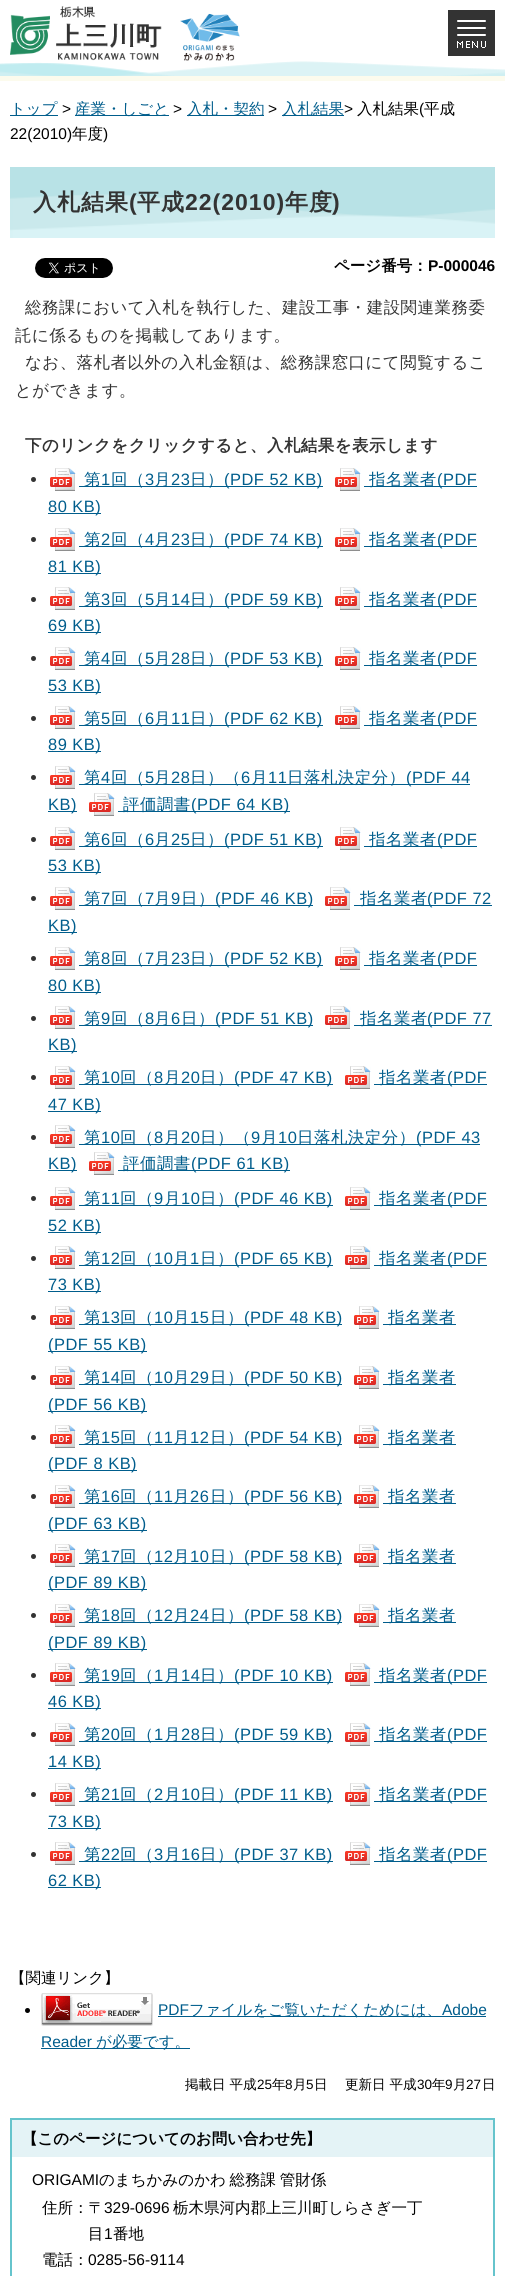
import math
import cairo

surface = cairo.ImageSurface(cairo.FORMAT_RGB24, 505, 2276)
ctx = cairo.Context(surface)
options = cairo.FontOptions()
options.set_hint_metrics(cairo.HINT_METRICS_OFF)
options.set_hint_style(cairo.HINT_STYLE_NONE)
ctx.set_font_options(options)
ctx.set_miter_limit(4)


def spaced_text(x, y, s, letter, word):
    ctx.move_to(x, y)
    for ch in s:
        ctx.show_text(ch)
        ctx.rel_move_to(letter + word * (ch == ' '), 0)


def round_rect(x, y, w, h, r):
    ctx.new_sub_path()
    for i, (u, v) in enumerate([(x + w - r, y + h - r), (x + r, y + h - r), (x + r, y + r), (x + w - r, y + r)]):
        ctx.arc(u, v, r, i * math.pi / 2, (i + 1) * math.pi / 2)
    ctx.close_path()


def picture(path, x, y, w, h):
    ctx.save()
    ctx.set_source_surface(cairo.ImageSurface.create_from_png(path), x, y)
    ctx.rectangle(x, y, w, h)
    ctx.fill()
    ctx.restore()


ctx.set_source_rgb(0.988, 0.984, 0.929)
ctx.paint()
ctx.set_source_rgb(1, 1, 1)
ctx.rectangle(0, 0, 505, 76)
ctx.fill()
picture("img1.png", 0, 61, 505, 15)
picture("img2.png", 10, 6, 230, 55)
ctx.set_source_rgb(0.2, 0.2, 0.2)
ctx.rectangle(448, 10, 47, 46)
ctx.fill()
ctx.set_source_rgb(1, 1, 1)
round_rect(457, 20, 29, 2, 1)
ctx.fill()
round_rect(457, 27, 29, 2, 1)
ctx.fill()
round_rect(457, 34, 29, 2, 1)
ctx.fill()
picture("img3.png", 457, 41, 29, 7)
ctx.rectangle(0, 81, 505, 2195)
ctx.fill()
ctx.set_source_rgb(0, 0.365, 0.549)
ctx.rectangle(10, 115, 48, 1)
ctx.fill()
ctx.select_font_face("WenQuanYi Zen Hei Medium")
ctx.set_font_size(15.5)
ctx.move_to(10, 114)
ctx.show_text("トップ")
ctx.select_font_face("Liberation Sans")
ctx.set_source_rgb(0, 0, 0)
ctx.move_to(62, 114)
ctx.show_text(">")
ctx.set_source_rgb(0, 0.365, 0.549)
ctx.rectangle(75, 115, 94, 1)
ctx.fill()
ctx.select_font_face("WenQuanYi Zen Hei Medium")
ctx.move_to(75, 114)
ctx.show_text("産業・しごと")
ctx.select_font_face("Liberation Sans")
ctx.set_source_rgb(0, 0, 0)
ctx.move_to(173, 114)
ctx.show_text(">")
ctx.set_source_rgb(0, 0.365, 0.549)
ctx.rectangle(187, 115, 77, 1)
ctx.fill()
ctx.select_font_face("WenQuanYi Zen Hei Medium")
ctx.move_to(187, 114)
ctx.show_text("入札・契約")
ctx.select_font_face("Liberation Sans")
ctx.set_source_rgb(0, 0, 0)
ctx.move_to(268, 114)
ctx.show_text(">")
ctx.set_source_rgb(0, 0.365, 0.549)
ctx.rectangle(282, 115, 62, 1)
ctx.fill()
ctx.select_font_face("WenQuanYi Zen Hei Medium")
ctx.move_to(282, 114)
ctx.show_text("入札結果")
ctx.select_font_face("Liberation Sans")
ctx.set_source_rgb(0, 0, 0)
ctx.move_to(344, 114)
ctx.show_text(">")
ctx.select_font_face("WenQuanYi Zen Hei Medium")
ctx.move_to(357, 114)
ctx.show_text("入札結果")
ctx.select_font_face("Liberation Sans")
ctx.move_to(419, 114)
ctx.show_text("(")
ctx.select_font_face("WenQuanYi Zen Hei Medium")
ctx.move_to(424, 114)
ctx.show_text("平成")
ctx.select_font_face("Liberation Sans")
ctx.move_to(10, 139)
ctx.show_text("22(2010)")
ctx.select_font_face("WenQuanYi Zen Hei Medium")
ctx.move_to(72, 139)
ctx.show_text("年度")
ctx.select_font_face("Liberation Sans")
ctx.move_to(103, 139)
ctx.show_text(")")
ctx.set_source_rgb(0.722, 0.886, 0.902)
ctx.rectangle(10, 167, 485, 27)
ctx.fill()
picture("img4.png", 10, 194, 485, 44)
ctx.select_font_face("WenQuanYi Zen Hei", cairo.FONT_SLANT_NORMAL, cairo.FONT_WEIGHT_BOLD)
ctx.set_font_size(23)
ctx.set_source_rgb(0.2, 0.2, 0.2)
spaced_text(33, 210, "入札結果", 1, 0)
ctx.select_font_face("Liberation Sans", cairo.FONT_SLANT_NORMAL, cairo.FONT_WEIGHT_BOLD)
spaced_text(129, 210, "(", 1, 0)
ctx.select_font_face("WenQuanYi Zen Hei", cairo.FONT_SLANT_NORMAL, cairo.FONT_WEIGHT_BOLD)
spaced_text(137, 210, "平成", 1, 0)
ctx.select_font_face("Liberation Sans", cairo.FONT_SLANT_NORMAL, cairo.FONT_WEIGHT_BOLD)
spaced_text(185, 210, "22(2010)", 1, 0)
ctx.select_font_face("WenQuanYi Zen Hei", cairo.FONT_SLANT_NORMAL, cairo.FONT_WEIGHT_BOLD)
spaced_text(285, 210, "年度", 1, 0)
ctx.select_font_face("Liberation Sans", cairo.FONT_SLANT_NORMAL, cairo.FONT_WEIGHT_BOLD)
spaced_text(332, 210, ")", 1, 0)
picture("img5.png", 35, 258, 78, 20)
ctx.select_font_face("WenQuanYi Zen Hei", cairo.FONT_SLANT_NORMAL, cairo.FONT_WEIGHT_BOLD)
ctx.set_font_size(15.5)
ctx.set_source_rgb(0, 0, 0)
ctx.move_to(334, 271)
ctx.show_text("ページ番号：")
ctx.select_font_face("Liberation Sans", cairo.FONT_SLANT_NORMAL, cairo.FONT_WEIGHT_BOLD)
ctx.move_to(428, 271)
ctx.show_text("P-000046")
ctx.select_font_face("WenQuanYi Zen Hei Medium")
ctx.set_font_size(16.45)
ctx.set_source_rgb(0.2, 0.2, 0.2)
spaced_text(25, 313, "総務課において入札を執行した、建設工事・建設関連業務委", 0.5, 0)
spaced_text(15, 341, "託に係るものを掲載してあります。", 0.5, 0)
spaced_text(25, 368, "なお、落札者以外の入札金額は、総務課窓口にて閲覧するこ", 0.5, 0)
spaced_text(15, 396, "とができます。", 0.5, 0)
ctx.select_font_face("WenQuanYi Zen Hei", cairo.FONT_SLANT_NORMAL, cairo.FONT_WEIGHT_BOLD)
spaced_text(25, 451, "下のリンクをクリックすると、入札結果を表示します", 0.5, 0)
ctx.new_path()
ctx.arc(33.5, 479.5, 2.5, 0, 2 * math.pi)
ctx.fill()
picture("img6.png", 50, 468, 26, 23)
ctx.set_source_rgb(0, 0.365, 0.549)
ctx.rectangle(79, 486, 244, 1)
ctx.fill()
ctx.select_font_face("WenQuanYi Zen Hei Medium")
spaced_text(84, 485, "第", 0.5, 0)
ctx.select_font_face("Liberation Sans")
spaced_text(101, 485, "1", 0.5, 0)
ctx.select_font_face("WenQuanYi Zen Hei Medium")
spaced_text(111, 485, "回（", 0.5, 0)
ctx.select_font_face("Liberation Sans")
spaced_text(145, 485, "3", 0.5, 0)
ctx.select_font_face("WenQuanYi Zen Hei Medium")
spaced_text(154, 485, "月", 0.5, 0)
ctx.select_font_face("Liberation Sans")
spaced_text(171, 485, "23", 0.5, 0)
ctx.select_font_face("WenQuanYi Zen Hei Medium")
spaced_text(190, 485, "日）", 0.5, 0)
ctx.select_font_face("Liberation Sans")
spaced_text(224, 485, "(PDF 52 KB)", 0.5, 0)
picture("img6.png", 335, 468, 26, 23)
ctx.rectangle(364, 486, 113, 1)
ctx.fill()
ctx.select_font_face("WenQuanYi Zen Hei Medium")
spaced_text(369, 485, "指名業者", 0.5, 0)
ctx.select_font_face("Liberation Sans")
spaced_text(437, 485, "(PDF", 0.5, 0)
ctx.rectangle(48, 513, 53, 1)
ctx.fill()
spaced_text(48, 512, "80 KB)", 0.5, 0)
ctx.set_source_rgb(0.2, 0.2, 0.2)
ctx.new_path()
ctx.arc(33.5, 539.5, 2.5, 0, 2 * math.pi)
ctx.fill()
picture("img6.png", 50, 528, 26, 23)
ctx.set_source_rgb(0, 0.365, 0.549)
ctx.rectangle(79, 546, 244, 1)
ctx.fill()
ctx.select_font_face("WenQuanYi Zen Hei Medium")
spaced_text(84, 545, "第", 0.5, 0)
ctx.select_font_face("Liberation Sans")
spaced_text(101, 545, "2", 0.5, 0)
ctx.select_font_face("WenQuanYi Zen Hei Medium")
spaced_text(111, 545, "回（", 0.5, 0)
ctx.select_font_face("Liberation Sans")
spaced_text(145, 545, "4", 0.5, 0)
ctx.select_font_face("WenQuanYi Zen Hei Medium")
spaced_text(154, 545, "月", 0.5, 0)
ctx.select_font_face("Liberation Sans")
spaced_text(171, 545, "23", 0.5, 0)
ctx.select_font_face("WenQuanYi Zen Hei Medium")
spaced_text(190, 545, "日）", 0.5, 0)
ctx.select_font_face("Liberation Sans")
spaced_text(224, 545, "(PDF 74 KB)", 0.5, 0)
picture("img6.png", 335, 528, 26, 23)
ctx.rectangle(364, 546, 113, 1)
ctx.fill()
ctx.select_font_face("WenQuanYi Zen Hei Medium")
spaced_text(369, 545, "指名業者", 0.5, 0)
ctx.select_font_face("Liberation Sans")
spaced_text(437, 545, "(PDF", 0.5, 0)
ctx.rectangle(48, 573, 53, 1)
ctx.fill()
spaced_text(48, 572, "81 KB)", 0.5, 0)
ctx.set_source_rgb(0.2, 0.2, 0.2)
ctx.new_path()
ctx.arc(33.5, 599.5, 2.5, 0, 2 * math.pi)
ctx.fill()
picture("img6.png", 50, 587, 26, 23)
ctx.set_source_rgb(0, 0.365, 0.549)
ctx.rectangle(79, 606, 244, 1)
ctx.fill()
ctx.select_font_face("WenQuanYi Zen Hei Medium")
spaced_text(84, 605, "第", 0.5, 0)
ctx.select_font_face("Liberation Sans")
spaced_text(101, 605, "3", 0.5, 0)
ctx.select_font_face("WenQuanYi Zen Hei Medium")
spaced_text(111, 605, "回（", 0.5, 0)
ctx.select_font_face("Liberation Sans")
spaced_text(145, 605, "5", 0.5, 0)
ctx.select_font_face("WenQuanYi Zen Hei Medium")
spaced_text(154, 605, "月", 0.5, 0)
ctx.select_font_face("Liberation Sans")
spaced_text(171, 605, "14", 0.5, 0)
ctx.select_font_face("WenQuanYi Zen Hei Medium")
spaced_text(190, 605, "日）", 0.5, 0)
ctx.select_font_face("Liberation Sans")
spaced_text(224, 605, "(PDF 59 KB)", 0.5, 0)
picture("img6.png", 335, 587, 26, 23)
ctx.rectangle(364, 606, 113, 1)
ctx.fill()
ctx.select_font_face("WenQuanYi Zen Hei Medium")
spaced_text(369, 605, "指名業者", 0.5, 0)
ctx.select_font_face("Liberation Sans")
spaced_text(437, 605, "(PDF", 0.5, 0)
ctx.rectangle(48, 632, 53, 1)
ctx.fill()
spaced_text(48, 631, "69 KB)", 0.5, 0)
ctx.set_source_rgb(0.2, 0.2, 0.2)
ctx.new_path()
ctx.arc(33.5, 658.5, 2.5, 0, 2 * math.pi)
ctx.fill()
picture("img6.png", 50, 647, 26, 23)
ctx.set_source_rgb(0, 0.365, 0.549)
ctx.rectangle(79, 665, 244, 1)
ctx.fill()
ctx.select_font_face("WenQuanYi Zen Hei Medium")
spaced_text(84, 664, "第", 0.5, 0)
ctx.select_font_face("Liberation Sans")
spaced_text(101, 664, "4", 0.5, 0)
ctx.select_font_face("WenQuanYi Zen Hei Medium")
spaced_text(111, 664, "回（", 0.5, 0)
ctx.select_font_face("Liberation Sans")
spaced_text(145, 664, "5", 0.5, 0)
ctx.select_font_face("WenQuanYi Zen Hei Medium")
spaced_text(154, 664, "月", 0.5, 0)
ctx.select_font_face("Liberation Sans")
spaced_text(171, 664, "28", 0.5, 0)
ctx.select_font_face("WenQuanYi Zen Hei Medium")
spaced_text(190, 664, "日）", 0.5, 0)
ctx.select_font_face("Liberation Sans")
spaced_text(224, 664, "(PDF 53 KB)", 0.5, 0)
picture("img6.png", 335, 647, 26, 23)
ctx.rectangle(364, 665, 113, 1)
ctx.fill()
ctx.select_font_face("WenQuanYi Zen Hei Medium")
spaced_text(369, 664, "指名業者", 0.5, 0)
ctx.select_font_face("Liberation Sans")
spaced_text(437, 664, "(PDF", 0.5, 0)
ctx.rectangle(48, 692, 53, 1)
ctx.fill()
spaced_text(48, 691, "53 KB)", 0.5, 0)
ctx.set_source_rgb(0.2, 0.2, 0.2)
ctx.new_path()
ctx.arc(33.5, 718.5, 2.5, 0, 2 * math.pi)
ctx.fill()
picture("img6.png", 50, 706, 26, 23)
ctx.set_source_rgb(0, 0.365, 0.549)
ctx.rectangle(79, 725, 244, 1)
ctx.fill()
ctx.select_font_face("WenQuanYi Zen Hei Medium")
spaced_text(84, 724, "第", 0.5, 0)
ctx.select_font_face("Liberation Sans")
spaced_text(101, 724, "5", 0.5, 0)
ctx.select_font_face("WenQuanYi Zen Hei Medium")
spaced_text(111, 724, "回（", 0.5, 0)
ctx.select_font_face("Liberation Sans")
spaced_text(145, 724, "6", 0.5, 0)
ctx.select_font_face("WenQuanYi Zen Hei Medium")
spaced_text(154, 724, "月", 0.5, 0)
ctx.select_font_face("Liberation Sans")
spaced_text(171, 724, "11", 0.5, 0)
ctx.select_font_face("WenQuanYi Zen Hei Medium")
spaced_text(190, 724, "日）", 0.5, 0)
ctx.select_font_face("Liberation Sans")
spaced_text(224, 724, "(PDF 62 KB)", 0.5, 0)
picture("img6.png", 335, 706, 26, 23)
ctx.rectangle(364, 725, 113, 1)
ctx.fill()
ctx.select_font_face("WenQuanYi Zen Hei Medium")
spaced_text(369, 724, "指名業者", 0.5, 0)
ctx.select_font_face("Liberation Sans")
spaced_text(437, 724, "(PDF", 0.5, 0)
ctx.rectangle(48, 751, 53, 1)
ctx.fill()
spaced_text(48, 750, "89 KB)", 0.5, 0)
ctx.set_source_rgb(0.2, 0.2, 0.2)
ctx.new_path()
ctx.arc(33.5, 777.5, 2.5, 0, 2 * math.pi)
ctx.fill()
picture("img6.png", 50, 766, 26, 23)
ctx.set_source_rgb(0, 0.365, 0.549)
ctx.rectangle(79, 784, 391, 1)
ctx.fill()
ctx.select_font_face("WenQuanYi Zen Hei Medium")
spaced_text(84, 783, "第", 0.5, 0)
ctx.select_font_face("Liberation Sans")
spaced_text(101, 783, "4", 0.5, 0)
ctx.select_font_face("WenQuanYi Zen Hei Medium")
spaced_text(111, 783, "回（", 0.5, 0)
ctx.select_font_face("Liberation Sans")
spaced_text(145, 783, "5", 0.5, 0)
ctx.select_font_face("WenQuanYi Zen Hei Medium")
spaced_text(154, 783, "月", 0.5, 0)
ctx.select_font_face("Liberation Sans")
spaced_text(171, 783, "28", 0.5, 0)
ctx.select_font_face("WenQuanYi Zen Hei Medium")
spaced_text(190, 783, "日）（", 0.5, 0)
ctx.select_font_face("Liberation Sans")
spaced_text(241, 783, "6", 0.5, 0)
ctx.select_font_face("WenQuanYi Zen Hei Medium")
spaced_text(251, 783, "月", 0.5, 0)
ctx.select_font_face("Liberation Sans")
spaced_text(268, 783, "11", 0.5, 0)
ctx.select_font_face("WenQuanYi Zen Hei Medium")
spaced_text(287, 783, "日落札決定分）", 0.5, 0)
ctx.select_font_face("Liberation Sans")
spaced_text(406, 783, "(PDF 44", 0.5, 0)
ctx.rectangle(48, 811, 29, 1)
ctx.fill()
spaced_text(48, 810, "KB)", 0.5, 0)
picture("img6.png", 89, 793, 26, 23)
ctx.rectangle(118, 811, 172, 1)
ctx.fill()
ctx.select_font_face("WenQuanYi Zen Hei Medium")
spaced_text(123, 810, "評価調書", 0.5, 0)
ctx.select_font_face("Liberation Sans")
spaced_text(191, 810, "(PDF 64 KB)", 0.5, 0)
ctx.set_source_rgb(0.2, 0.2, 0.2)
ctx.new_path()
ctx.arc(33.5, 839.5, 2.5, 0, 2 * math.pi)
ctx.fill()
picture("img6.png", 50, 827, 26, 23)
ctx.set_source_rgb(0, 0.365, 0.549)
ctx.rectangle(79, 846, 244, 1)
ctx.fill()
ctx.select_font_face("WenQuanYi Zen Hei Medium")
spaced_text(84, 845, "第", 0.5, 0)
ctx.select_font_face("Liberation Sans")
spaced_text(101, 845, "6", 0.5, 0)
ctx.select_font_face("WenQuanYi Zen Hei Medium")
spaced_text(111, 845, "回（", 0.5, 0)
ctx.select_font_face("Liberation Sans")
spaced_text(145, 845, "6", 0.5, 0)
ctx.select_font_face("WenQuanYi Zen Hei Medium")
spaced_text(154, 845, "月", 0.5, 0)
ctx.select_font_face("Liberation Sans")
spaced_text(171, 845, "25", 0.5, 0)
ctx.select_font_face("WenQuanYi Zen Hei Medium")
spaced_text(190, 845, "日）", 0.5, 0)
ctx.select_font_face("Liberation Sans")
spaced_text(224, 845, "(PDF 51 KB)", 0.5, 0)
picture("img6.png", 335, 827, 26, 23)
ctx.rectangle(364, 846, 113, 1)
ctx.fill()
ctx.select_font_face("WenQuanYi Zen Hei Medium")
spaced_text(369, 845, "指名業者", 0.5, 0)
ctx.select_font_face("Liberation Sans")
spaced_text(437, 845, "(PDF", 0.5, 0)
ctx.rectangle(48, 872, 53, 1)
ctx.fill()
spaced_text(48, 871, "53 KB)", 0.5, 0)
ctx.set_source_rgb(0.2, 0.2, 0.2)
ctx.new_path()
ctx.arc(33.5, 898.5, 2.5, 0, 2 * math.pi)
ctx.fill()
picture("img6.png", 50, 887, 26, 23)
ctx.set_source_rgb(0, 0.365, 0.549)
ctx.rectangle(79, 905, 234, 1)
ctx.fill()
ctx.select_font_face("WenQuanYi Zen Hei Medium")
spaced_text(84, 904, "第", 0.5, 0)
ctx.select_font_face("Liberation Sans")
spaced_text(101, 904, "7", 0.5, 0)
ctx.select_font_face("WenQuanYi Zen Hei Medium")
spaced_text(111, 904, "回（", 0.5, 0)
ctx.select_font_face("Liberation Sans")
spaced_text(145, 904, "7", 0.5, 0)
ctx.select_font_face("WenQuanYi Zen Hei Medium")
spaced_text(154, 904, "月", 0.5, 0)
ctx.select_font_face("Liberation Sans")
spaced_text(171, 904, "9", 0.5, 0)
ctx.select_font_face("WenQuanYi Zen Hei Medium")
spaced_text(181, 904, "日）", 0.5, 0)
ctx.select_font_face("Liberation Sans")
spaced_text(215, 904, "(PDF 46 KB)", 0.5, 0)
picture("img6.png", 325, 887, 26, 23)
ctx.rectangle(354, 905, 138, 1)
ctx.fill()
ctx.select_font_face("WenQuanYi Zen Hei Medium")
spaced_text(360, 904, "指名業者", 0.5, 0)
ctx.select_font_face("Liberation Sans")
spaced_text(427, 904, "(PDF 72", 0.5, 0)
ctx.rectangle(48, 932, 29, 1)
ctx.fill()
spaced_text(48, 931, "KB)", 0.5, 0)
ctx.set_source_rgb(0.2, 0.2, 0.2)
ctx.new_path()
ctx.arc(33.5, 958.5, 2.5, 0, 2 * math.pi)
ctx.fill()
picture("img6.png", 50, 947, 26, 23)
ctx.set_source_rgb(0, 0.365, 0.549)
ctx.rectangle(79, 965, 244, 1)
ctx.fill()
ctx.select_font_face("WenQuanYi Zen Hei Medium")
spaced_text(84, 964, "第", 0.5, 0)
ctx.select_font_face("Liberation Sans")
spaced_text(101, 964, "8", 0.5, 0)
ctx.select_font_face("WenQuanYi Zen Hei Medium")
spaced_text(111, 964, "回（", 0.5, 0)
ctx.select_font_face("Liberation Sans")
spaced_text(145, 964, "7", 0.5, 0)
ctx.select_font_face("WenQuanYi Zen Hei Medium")
spaced_text(154, 964, "月", 0.5, 0)
ctx.select_font_face("Liberation Sans")
spaced_text(171, 964, "23", 0.5, 0)
ctx.select_font_face("WenQuanYi Zen Hei Medium")
spaced_text(190, 964, "日）", 0.5, 0)
ctx.select_font_face("Liberation Sans")
spaced_text(224, 964, "(PDF 52 KB)", 0.5, 0)
picture("img6.png", 335, 947, 26, 23)
ctx.rectangle(364, 965, 113, 1)
ctx.fill()
ctx.select_font_face("WenQuanYi Zen Hei Medium")
spaced_text(369, 964, "指名業者", 0.5, 0)
ctx.select_font_face("Liberation Sans")
spaced_text(437, 964, "(PDF", 0.5, 0)
ctx.rectangle(48, 992, 53, 1)
ctx.fill()
spaced_text(48, 991, "80 KB)", 0.5, 0)
ctx.set_source_rgb(0.2, 0.2, 0.2)
ctx.new_path()
ctx.arc(33.5, 1018.5, 2.5, 0, 2 * math.pi)
ctx.fill()
picture("img6.png", 50, 1006, 26, 23)
ctx.set_source_rgb(0, 0.365, 0.549)
ctx.rectangle(79, 1025, 234, 1)
ctx.fill()
ctx.select_font_face("WenQuanYi Zen Hei Medium")
spaced_text(84, 1024, "第", 0.5, 0)
ctx.select_font_face("Liberation Sans")
spaced_text(101, 1024, "9", 0.5, 0)
ctx.select_font_face("WenQuanYi Zen Hei Medium")
spaced_text(111, 1024, "回（", 0.5, 0)
ctx.select_font_face("Liberation Sans")
spaced_text(145, 1024, "8", 0.5, 0)
ctx.select_font_face("WenQuanYi Zen Hei Medium")
spaced_text(154, 1024, "月", 0.5, 0)
ctx.select_font_face("Liberation Sans")
spaced_text(171, 1024, "6", 0.5, 0)
ctx.select_font_face("WenQuanYi Zen Hei Medium")
spaced_text(181, 1024, "日）", 0.5, 0)
ctx.select_font_face("Liberation Sans")
spaced_text(215, 1024, "(PDF 51 KB)", 0.5, 0)
picture("img6.png", 325, 1006, 26, 23)
ctx.rectangle(354, 1025, 138, 1)
ctx.fill()
ctx.select_font_face("WenQuanYi Zen Hei Medium")
spaced_text(360, 1024, "指名業者", 0.5, 0)
ctx.select_font_face("Liberation Sans")
spaced_text(427, 1024, "(PDF 77", 0.5, 0)
ctx.rectangle(48, 1051, 29, 1)
ctx.fill()
spaced_text(48, 1050, "KB)", 0.5, 0)
ctx.set_source_rgb(0.2, 0.2, 0.2)
ctx.new_path()
ctx.arc(33.5, 1077.5, 2.5, 0, 2 * math.pi)
ctx.fill()
picture("img6.png", 50, 1066, 26, 23)
ctx.set_source_rgb(0, 0.365, 0.549)
ctx.rectangle(79, 1084, 254, 1)
ctx.fill()
ctx.select_font_face("WenQuanYi Zen Hei Medium")
spaced_text(84, 1083, "第", 0.5, 0)
ctx.select_font_face("Liberation Sans")
spaced_text(101, 1083, "10", 0.5, 0)
ctx.select_font_face("WenQuanYi Zen Hei Medium")
spaced_text(120, 1083, "回（", 0.5, 0)
ctx.select_font_face("Liberation Sans")
spaced_text(154, 1083, "8", 0.5, 0)
ctx.select_font_face("WenQuanYi Zen Hei Medium")
spaced_text(164, 1083, "月", 0.5, 0)
ctx.select_font_face("Liberation Sans")
spaced_text(181, 1083, "20", 0.5, 0)
ctx.select_font_face("WenQuanYi Zen Hei Medium")
spaced_text(200, 1083, "日）", 0.5, 0)
ctx.select_font_face("Liberation Sans")
spaced_text(234, 1083, "(PDF 47 KB)", 0.5, 0)
picture("img6.png", 345, 1066, 26, 23)
ctx.rectangle(374, 1084, 113, 1)
ctx.fill()
ctx.select_font_face("WenQuanYi Zen Hei Medium")
spaced_text(379, 1083, "指名業者", 0.5, 0)
ctx.select_font_face("Liberation Sans")
spaced_text(447, 1083, "(PDF", 0.5, 0)
ctx.rectangle(48, 1111, 53, 1)
ctx.fill()
spaced_text(48, 1110, "47 KB)", 0.5, 0)
ctx.set_source_rgb(0.2, 0.2, 0.2)
ctx.new_path()
ctx.arc(33.5, 1137.5, 2.5, 0, 2 * math.pi)
ctx.fill()
picture("img6.png", 50, 1125, 26, 23)
ctx.set_source_rgb(0, 0.365, 0.549)
ctx.rectangle(79, 1144, 401, 1)
ctx.fill()
ctx.select_font_face("WenQuanYi Zen Hei Medium")
spaced_text(84, 1143, "第", 0.5, 0)
ctx.select_font_face("Liberation Sans")
spaced_text(101, 1143, "10", 0.5, 0)
ctx.select_font_face("WenQuanYi Zen Hei Medium")
spaced_text(120, 1143, "回（", 0.5, 0)
ctx.select_font_face("Liberation Sans")
spaced_text(154, 1143, "8", 0.5, 0)
ctx.select_font_face("WenQuanYi Zen Hei Medium")
spaced_text(164, 1143, "月", 0.5, 0)
ctx.select_font_face("Liberation Sans")
spaced_text(181, 1143, "20", 0.5, 0)
ctx.select_font_face("WenQuanYi Zen Hei Medium")
spaced_text(200, 1143, "日）（", 0.5, 0)
ctx.select_font_face("Liberation Sans")
spaced_text(251, 1143, "9", 0.5, 0)
ctx.select_font_face("WenQuanYi Zen Hei Medium")
spaced_text(261, 1143, "月", 0.5, 0)
ctx.select_font_face("Liberation Sans")
spaced_text(278, 1143, "10", 0.5, 0)
ctx.select_font_face("WenQuanYi Zen Hei Medium")
spaced_text(297, 1143, "日落札決定分）", 0.5, 0)
ctx.select_font_face("Liberation Sans")
spaced_text(416, 1143, "(PDF 43", 0.5, 0)
ctx.rectangle(48, 1170, 29, 1)
ctx.fill()
spaced_text(48, 1169, "KB)", 0.5, 0)
picture("img6.png", 89, 1152, 26, 23)
ctx.rectangle(118, 1170, 172, 1)
ctx.fill()
ctx.select_font_face("WenQuanYi Zen Hei Medium")
spaced_text(123, 1169, "評価調書", 0.5, 0)
ctx.select_font_face("Liberation Sans")
spaced_text(191, 1169, "(PDF 61 KB)", 0.5, 0)
ctx.set_source_rgb(0.2, 0.2, 0.2)
ctx.new_path()
ctx.arc(33.5, 1198.5, 2.5, 0, 2 * math.pi)
ctx.fill()
picture("img6.png", 50, 1187, 26, 23)
ctx.set_source_rgb(0, 0.365, 0.549)
ctx.rectangle(79, 1205, 254, 1)
ctx.fill()
ctx.select_font_face("WenQuanYi Zen Hei Medium")
spaced_text(84, 1204, "第", 0.5, 0)
ctx.select_font_face("Liberation Sans")
spaced_text(101, 1204, "11", 0.5, 0)
ctx.select_font_face("WenQuanYi Zen Hei Medium")
spaced_text(120, 1204, "回（", 0.5, 0)
ctx.select_font_face("Liberation Sans")
spaced_text(154, 1204, "9", 0.5, 0)
ctx.select_font_face("WenQuanYi Zen Hei Medium")
spaced_text(164, 1204, "月", 0.5, 0)
ctx.select_font_face("Liberation Sans")
spaced_text(181, 1204, "10", 0.5, 0)
ctx.select_font_face("WenQuanYi Zen Hei Medium")
spaced_text(200, 1204, "日）", 0.5, 0)
ctx.select_font_face("Liberation Sans")
spaced_text(234, 1204, "(PDF 46 KB)", 0.5, 0)
picture("img6.png", 345, 1187, 26, 23)
ctx.rectangle(374, 1205, 113, 1)
ctx.fill()
ctx.select_font_face("WenQuanYi Zen Hei Medium")
spaced_text(379, 1204, "指名業者", 0.5, 0)
ctx.select_font_face("Liberation Sans")
spaced_text(447, 1204, "(PDF", 0.5, 0)
ctx.rectangle(48, 1232, 53, 1)
ctx.fill()
spaced_text(48, 1231, "52 KB)", 0.5, 0)
ctx.set_source_rgb(0.2, 0.2, 0.2)
ctx.new_path()
ctx.arc(33.5, 1258.5, 2.5, 0, 2 * math.pi)
ctx.fill()
picture("img6.png", 50, 1246, 26, 23)
ctx.set_source_rgb(0, 0.365, 0.549)
ctx.rectangle(79, 1265, 254, 1)
ctx.fill()
ctx.select_font_face("WenQuanYi Zen Hei Medium")
spaced_text(84, 1264, "第", 0.5, 0)
ctx.select_font_face("Liberation Sans")
spaced_text(101, 1264, "12", 0.5, 0)
ctx.select_font_face("WenQuanYi Zen Hei Medium")
spaced_text(120, 1264, "回（", 0.5, 0)
ctx.select_font_face("Liberation Sans")
spaced_text(154, 1264, "10", 0.5, 0)
ctx.select_font_face("WenQuanYi Zen Hei Medium")
spaced_text(173, 1264, "月", 0.5, 0)
ctx.select_font_face("Liberation Sans")
spaced_text(190, 1264, "1", 0.5, 0)
ctx.select_font_face("WenQuanYi Zen Hei Medium")
spaced_text(200, 1264, "日）", 0.5, 0)
ctx.select_font_face("Liberation Sans")
spaced_text(234, 1264, "(PDF 65 KB)", 0.5, 0)
picture("img6.png", 345, 1246, 26, 23)
ctx.rectangle(374, 1265, 113, 1)
ctx.fill()
ctx.select_font_face("WenQuanYi Zen Hei Medium")
spaced_text(379, 1264, "指名業者", 0.5, 0)
ctx.select_font_face("Liberation Sans")
spaced_text(447, 1264, "(PDF", 0.5, 0)
ctx.rectangle(48, 1291, 53, 1)
ctx.fill()
spaced_text(48, 1290, "73 KB)", 0.5, 0)
ctx.set_source_rgb(0.2, 0.2, 0.2)
ctx.new_path()
ctx.arc(33.5, 1317.5, 2.5, 0, 2 * math.pi)
ctx.fill()
picture("img6.png", 50, 1306, 26, 23)
ctx.set_source_rgb(0, 0.365, 0.549)
ctx.rectangle(79, 1324, 263, 1)
ctx.fill()
ctx.select_font_face("WenQuanYi Zen Hei Medium")
spaced_text(84, 1323, "第", 0.5, 0)
ctx.select_font_face("Liberation Sans")
spaced_text(101, 1323, "13", 0.5, 0)
ctx.select_font_face("WenQuanYi Zen Hei Medium")
spaced_text(120, 1323, "回（", 0.5, 0)
ctx.select_font_face("Liberation Sans")
spaced_text(154, 1323, "10", 0.5, 0)
ctx.select_font_face("WenQuanYi Zen Hei Medium")
spaced_text(173, 1323, "月", 0.5, 0)
ctx.select_font_face("Liberation Sans")
spaced_text(190, 1323, "15", 0.5, 0)
ctx.select_font_face("WenQuanYi Zen Hei Medium")
spaced_text(210, 1323, "日）", 0.5, 0)
ctx.select_font_face("Liberation Sans")
spaced_text(244, 1323, "(PDF 48 KB)", 0.5, 0)
picture("img6.png", 354, 1306, 26, 23)
ctx.rectangle(383, 1324, 73, 1)
ctx.fill()
ctx.select_font_face("WenQuanYi Zen Hei Medium")
spaced_text(388, 1323, "指名業者", 0.5, 0)
ctx.rectangle(48, 1351, 99, 1)
ctx.fill()
ctx.select_font_face("Liberation Sans")
spaced_text(48, 1350, "(PDF 55 KB)", 0.5, 0)
ctx.set_source_rgb(0.2, 0.2, 0.2)
ctx.new_path()
ctx.arc(33.5, 1377.5, 2.5, 0, 2 * math.pi)
ctx.fill()
picture("img6.png", 50, 1366, 26, 23)
ctx.set_source_rgb(0, 0.365, 0.549)
ctx.rectangle(79, 1384, 263, 1)
ctx.fill()
ctx.select_font_face("WenQuanYi Zen Hei Medium")
spaced_text(84, 1383, "第", 0.5, 0)
ctx.select_font_face("Liberation Sans")
spaced_text(101, 1383, "14", 0.5, 0)
ctx.select_font_face("WenQuanYi Zen Hei Medium")
spaced_text(120, 1383, "回（", 0.5, 0)
ctx.select_font_face("Liberation Sans")
spaced_text(154, 1383, "10", 0.5, 0)
ctx.select_font_face("WenQuanYi Zen Hei Medium")
spaced_text(173, 1383, "月", 0.5, 0)
ctx.select_font_face("Liberation Sans")
spaced_text(190, 1383, "29", 0.5, 0)
ctx.select_font_face("WenQuanYi Zen Hei Medium")
spaced_text(210, 1383, "日）", 0.5, 0)
ctx.select_font_face("Liberation Sans")
spaced_text(244, 1383, "(PDF 50 KB)", 0.5, 0)
picture("img6.png", 354, 1366, 26, 23)
ctx.rectangle(383, 1384, 73, 1)
ctx.fill()
ctx.select_font_face("WenQuanYi Zen Hei Medium")
spaced_text(388, 1383, "指名業者", 0.5, 0)
ctx.rectangle(48, 1411, 99, 1)
ctx.fill()
ctx.select_font_face("Liberation Sans")
spaced_text(48, 1410, "(PDF 56 KB)", 0.5, 0)
ctx.set_source_rgb(0.2, 0.2, 0.2)
ctx.new_path()
ctx.arc(33.5, 1437.5, 2.5, 0, 2 * math.pi)
ctx.fill()
picture("img6.png", 50, 1425, 26, 23)
ctx.set_source_rgb(0, 0.365, 0.549)
ctx.rectangle(79, 1444, 263, 1)
ctx.fill()
ctx.select_font_face("WenQuanYi Zen Hei Medium")
spaced_text(84, 1443, "第", 0.5, 0)
ctx.select_font_face("Liberation Sans")
spaced_text(101, 1443, "15", 0.5, 0)
ctx.select_font_face("WenQuanYi Zen Hei Medium")
spaced_text(120, 1443, "回（", 0.5, 0)
ctx.select_font_face("Liberation Sans")
spaced_text(154, 1443, "11", 0.5, 0)
ctx.select_font_face("WenQuanYi Zen Hei Medium")
spaced_text(173, 1443, "月", 0.5, 0)
ctx.select_font_face("Liberation Sans")
spaced_text(190, 1443, "12", 0.5, 0)
ctx.select_font_face("WenQuanYi Zen Hei Medium")
spaced_text(210, 1443, "日）", 0.5, 0)
ctx.select_font_face("Liberation Sans")
spaced_text(244, 1443, "(PDF 54 KB)", 0.5, 0)
picture("img6.png", 354, 1425, 26, 23)
ctx.rectangle(383, 1444, 73, 1)
ctx.fill()
ctx.select_font_face("WenQuanYi Zen Hei Medium")
spaced_text(388, 1443, "指名業者", 0.5, 0)
ctx.rectangle(48, 1470, 89, 1)
ctx.fill()
ctx.select_font_face("Liberation Sans")
spaced_text(48, 1469, "(PDF 8 KB)", 0.5, 0)
ctx.set_source_rgb(0.2, 0.2, 0.2)
ctx.new_path()
ctx.arc(33.5, 1496.5, 2.5, 0, 2 * math.pi)
ctx.fill()
picture("img6.png", 50, 1485, 26, 23)
ctx.set_source_rgb(0, 0.365, 0.549)
ctx.rectangle(79, 1503, 263, 1)
ctx.fill()
ctx.select_font_face("WenQuanYi Zen Hei Medium")
spaced_text(84, 1502, "第", 0.5, 0)
ctx.select_font_face("Liberation Sans")
spaced_text(101, 1502, "16", 0.5, 0)
ctx.select_font_face("WenQuanYi Zen Hei Medium")
spaced_text(120, 1502, "回（", 0.5, 0)
ctx.select_font_face("Liberation Sans")
spaced_text(154, 1502, "11", 0.5, 0)
ctx.select_font_face("WenQuanYi Zen Hei Medium")
spaced_text(173, 1502, "月", 0.5, 0)
ctx.select_font_face("Liberation Sans")
spaced_text(190, 1502, "26", 0.5, 0)
ctx.select_font_face("WenQuanYi Zen Hei Medium")
spaced_text(210, 1502, "日）", 0.5, 0)
ctx.select_font_face("Liberation Sans")
spaced_text(244, 1502, "(PDF 56 KB)", 0.5, 0)
picture("img6.png", 354, 1485, 26, 23)
ctx.rectangle(383, 1503, 73, 1)
ctx.fill()
ctx.select_font_face("WenQuanYi Zen Hei Medium")
spaced_text(388, 1502, "指名業者", 0.5, 0)
ctx.rectangle(48, 1530, 99, 1)
ctx.fill()
ctx.select_font_face("Liberation Sans")
spaced_text(48, 1529, "(PDF 63 KB)", 0.5, 0)
ctx.set_source_rgb(0.2, 0.2, 0.2)
ctx.new_path()
ctx.arc(33.5, 1556.5, 2.5, 0, 2 * math.pi)
ctx.fill()
picture("img6.png", 50, 1544, 26, 23)
ctx.set_source_rgb(0, 0.365, 0.549)
ctx.rectangle(79, 1563, 263, 1)
ctx.fill()
ctx.select_font_face("WenQuanYi Zen Hei Medium")
spaced_text(84, 1562, "第", 0.5, 0)
ctx.select_font_face("Liberation Sans")
spaced_text(101, 1562, "17", 0.5, 0)
ctx.select_font_face("WenQuanYi Zen Hei Medium")
spaced_text(120, 1562, "回（", 0.5, 0)
ctx.select_font_face("Liberation Sans")
spaced_text(154, 1562, "12", 0.5, 0)
ctx.select_font_face("WenQuanYi Zen Hei Medium")
spaced_text(173, 1562, "月", 0.5, 0)
ctx.select_font_face("Liberation Sans")
spaced_text(190, 1562, "10", 0.5, 0)
ctx.select_font_face("WenQuanYi Zen Hei Medium")
spaced_text(210, 1562, "日）", 0.5, 0)
ctx.select_font_face("Liberation Sans")
spaced_text(244, 1562, "(PDF 58 KB)", 0.5, 0)
picture("img6.png", 354, 1544, 26, 23)
ctx.rectangle(383, 1563, 73, 1)
ctx.fill()
ctx.select_font_face("WenQuanYi Zen Hei Medium")
spaced_text(388, 1562, "指名業者", 0.5, 0)
ctx.rectangle(48, 1589, 99, 1)
ctx.fill()
ctx.select_font_face("Liberation Sans")
spaced_text(48, 1588, "(PDF 89 KB)", 0.5, 0)
ctx.set_source_rgb(0.2, 0.2, 0.2)
ctx.new_path()
ctx.arc(33.5, 1615.5, 2.5, 0, 2 * math.pi)
ctx.fill()
picture("img6.png", 50, 1604, 26, 23)
ctx.set_source_rgb(0, 0.365, 0.549)
ctx.rectangle(79, 1622, 263, 1)
ctx.fill()
ctx.select_font_face("WenQuanYi Zen Hei Medium")
spaced_text(84, 1621, "第", 0.5, 0)
ctx.select_font_face("Liberation Sans")
spaced_text(101, 1621, "18", 0.5, 0)
ctx.select_font_face("WenQuanYi Zen Hei Medium")
spaced_text(120, 1621, "回（", 0.5, 0)
ctx.select_font_face("Liberation Sans")
spaced_text(154, 1621, "12", 0.5, 0)
ctx.select_font_face("WenQuanYi Zen Hei Medium")
spaced_text(173, 1621, "月", 0.5, 0)
ctx.select_font_face("Liberation Sans")
spaced_text(190, 1621, "24", 0.5, 0)
ctx.select_font_face("WenQuanYi Zen Hei Medium")
spaced_text(210, 1621, "日）", 0.5, 0)
ctx.select_font_face("Liberation Sans")
spaced_text(244, 1621, "(PDF 58 KB)", 0.5, 0)
picture("img6.png", 354, 1604, 26, 23)
ctx.rectangle(383, 1622, 73, 1)
ctx.fill()
ctx.select_font_face("WenQuanYi Zen Hei Medium")
spaced_text(388, 1621, "指名業者", 0.5, 0)
ctx.rectangle(48, 1649, 99, 1)
ctx.fill()
ctx.select_font_face("Liberation Sans")
spaced_text(48, 1648, "(PDF 89 KB)", 0.5, 0)
ctx.set_source_rgb(0.2, 0.2, 0.2)
ctx.new_path()
ctx.arc(33.5, 1675.5, 2.5, 0, 2 * math.pi)
ctx.fill()
picture("img6.png", 50, 1663, 26, 23)
ctx.set_source_rgb(0, 0.365, 0.549)
ctx.rectangle(79, 1682, 254, 1)
ctx.fill()
ctx.select_font_face("WenQuanYi Zen Hei Medium")
spaced_text(84, 1681, "第", 0.5, 0)
ctx.select_font_face("Liberation Sans")
spaced_text(101, 1681, "19", 0.5, 0)
ctx.select_font_face("WenQuanYi Zen Hei Medium")
spaced_text(120, 1681, "回（", 0.5, 0)
ctx.select_font_face("Liberation Sans")
spaced_text(154, 1681, "1", 0.5, 0)
ctx.select_font_face("WenQuanYi Zen Hei Medium")
spaced_text(164, 1681, "月", 0.5, 0)
ctx.select_font_face("Liberation Sans")
spaced_text(181, 1681, "14", 0.5, 0)
ctx.select_font_face("WenQuanYi Zen Hei Medium")
spaced_text(200, 1681, "日）", 0.5, 0)
ctx.select_font_face("Liberation Sans")
spaced_text(234, 1681, "(PDF 10 KB)", 0.5, 0)
picture("img6.png", 345, 1663, 26, 23)
ctx.rectangle(374, 1682, 113, 1)
ctx.fill()
ctx.select_font_face("WenQuanYi Zen Hei Medium")
spaced_text(379, 1681, "指名業者", 0.5, 0)
ctx.select_font_face("Liberation Sans")
spaced_text(447, 1681, "(PDF", 0.5, 0)
ctx.rectangle(48, 1708, 53, 1)
ctx.fill()
spaced_text(48, 1707, "46 KB)", 0.5, 0)
ctx.set_source_rgb(0.2, 0.2, 0.2)
ctx.new_path()
ctx.arc(33.5, 1734.5, 2.5, 0, 2 * math.pi)
ctx.fill()
picture("img6.png", 50, 1723, 26, 23)
ctx.set_source_rgb(0, 0.365, 0.549)
ctx.rectangle(79, 1741, 254, 1)
ctx.fill()
ctx.select_font_face("WenQuanYi Zen Hei Medium")
spaced_text(84, 1740, "第", 0.5, 0)
ctx.select_font_face("Liberation Sans")
spaced_text(101, 1740, "20", 0.5, 0)
ctx.select_font_face("WenQuanYi Zen Hei Medium")
spaced_text(120, 1740, "回（", 0.5, 0)
ctx.select_font_face("Liberation Sans")
spaced_text(154, 1740, "1", 0.5, 0)
ctx.select_font_face("WenQuanYi Zen Hei Medium")
spaced_text(164, 1740, "月", 0.5, 0)
ctx.select_font_face("Liberation Sans")
spaced_text(181, 1740, "28", 0.5, 0)
ctx.select_font_face("WenQuanYi Zen Hei Medium")
spaced_text(200, 1740, "日）", 0.5, 0)
ctx.select_font_face("Liberation Sans")
spaced_text(234, 1740, "(PDF 59 KB)", 0.5, 0)
picture("img6.png", 345, 1723, 26, 23)
ctx.rectangle(374, 1741, 113, 1)
ctx.fill()
ctx.select_font_face("WenQuanYi Zen Hei Medium")
spaced_text(379, 1740, "指名業者", 0.5, 0)
ctx.select_font_face("Liberation Sans")
spaced_text(447, 1740, "(PDF", 0.5, 0)
ctx.rectangle(48, 1768, 53, 1)
ctx.fill()
spaced_text(48, 1767, "14 KB)", 0.5, 0)
ctx.set_source_rgb(0.2, 0.2, 0.2)
ctx.new_path()
ctx.arc(33.5, 1794.5, 2.5, 0, 2 * math.pi)
ctx.fill()
picture("img6.png", 50, 1783, 26, 23)
ctx.set_source_rgb(0, 0.365, 0.549)
ctx.rectangle(79, 1801, 254, 1)
ctx.fill()
ctx.select_font_face("WenQuanYi Zen Hei Medium")
spaced_text(84, 1800, "第", 0.5, 0)
ctx.select_font_face("Liberation Sans")
spaced_text(101, 1800, "21", 0.5, 0)
ctx.select_font_face("WenQuanYi Zen Hei Medium")
spaced_text(120, 1800, "回（", 0.5, 0)
ctx.select_font_face("Liberation Sans")
spaced_text(154, 1800, "2", 0.5, 0)
ctx.select_font_face("WenQuanYi Zen Hei Medium")
spaced_text(164, 1800, "月", 0.5, 0)
ctx.select_font_face("Liberation Sans")
spaced_text(181, 1800, "10", 0.5, 0)
ctx.select_font_face("WenQuanYi Zen Hei Medium")
spaced_text(200, 1800, "日）", 0.5, 0)
ctx.select_font_face("Liberation Sans")
spaced_text(234, 1800, "(PDF 11 KB)", 0.5, 0)
picture("img6.png", 345, 1783, 26, 23)
ctx.rectangle(374, 1801, 113, 1)
ctx.fill()
ctx.select_font_face("WenQuanYi Zen Hei Medium")
spaced_text(379, 1800, "指名業者", 0.5, 0)
ctx.select_font_face("Liberation Sans")
spaced_text(447, 1800, "(PDF", 0.5, 0)
ctx.rectangle(48, 1828, 53, 1)
ctx.fill()
spaced_text(48, 1827, "73 KB)", 0.5, 0)
ctx.set_source_rgb(0.2, 0.2, 0.2)
ctx.new_path()
ctx.arc(33.5, 1854.5, 2.5, 0, 2 * math.pi)
ctx.fill()
picture("img6.png", 50, 1842, 26, 23)
ctx.set_source_rgb(0, 0.365, 0.549)
ctx.rectangle(79, 1861, 254, 1)
ctx.fill()
ctx.select_font_face("WenQuanYi Zen Hei Medium")
spaced_text(84, 1860, "第", 0.5, 0)
ctx.select_font_face("Liberation Sans")
spaced_text(101, 1860, "22", 0.5, 0)
ctx.select_font_face("WenQuanYi Zen Hei Medium")
spaced_text(120, 1860, "回（", 0.5, 0)
ctx.select_font_face("Liberation Sans")
spaced_text(154, 1860, "3", 0.5, 0)
ctx.select_font_face("WenQuanYi Zen Hei Medium")
spaced_text(164, 1860, "月", 0.5, 0)
ctx.select_font_face("Liberation Sans")
spaced_text(181, 1860, "16", 0.5, 0)
ctx.select_font_face("WenQuanYi Zen Hei Medium")
spaced_text(200, 1860, "日）", 0.5, 0)
ctx.select_font_face("Liberation Sans")
spaced_text(234, 1860, "(PDF 37 KB)", 0.5, 0)
picture("img6.png", 345, 1842, 26, 23)
ctx.rectangle(374, 1861, 113, 1)
ctx.fill()
ctx.select_font_face("WenQuanYi Zen Hei Medium")
spaced_text(379, 1860, "指名業者", 0.5, 0)
ctx.select_font_face("Liberation Sans")
spaced_text(447, 1860, "(PDF", 0.5, 0)
ctx.rectangle(48, 1887, 53, 1)
ctx.fill()
spaced_text(48, 1886, "62 KB)", 0.5, 0)
ctx.select_font_face("WenQuanYi Zen Hei Medium")
ctx.set_font_size(15.5)
ctx.set_source_rgb(0, 0, 0)
ctx.move_to(10, 1983)
ctx.show_text("【関連リンク】")
ctx.new_path()
ctx.arc(27.5, 2010.5, 2.5, 0, 2 * math.pi)
ctx.fill()
picture("img7.png", 41, 1993, 112, 33)
ctx.select_font_face("Liberation Sans")
ctx.set_source_rgb(0, 0.365, 0.549)
ctx.move_to(158, 2015)
ctx.show_text("PDF")
ctx.rectangle(158, 2016, 328, 1)
ctx.fill()
ctx.select_font_face("WenQuanYi Zen Hei Medium")
ctx.move_to(189, 2015)
ctx.show_text("ファイルをご覧いただくためには、")
ctx.select_font_face("Liberation Sans")
ctx.move_to(442, 2015)
ctx.show_text("Adobe")
ctx.move_to(41, 2047)
ctx.show_text("Reader")
ctx.rectangle(41, 2048, 149, 1)
ctx.fill()
ctx.select_font_face("WenQuanYi Zen Hei Medium")
ctx.move_to(96, 2047)
ctx.show_text("が必要です。")
ctx.set_font_size(13.5)
ctx.set_source_rgb(0, 0, 0)
ctx.move_to(185, 2089)
ctx.show_text("掲載日 平成")
ctx.select_font_face("Liberation Sans")
ctx.move_to(257, 2089)
ctx.show_text("25")
ctx.select_font_face("WenQuanYi Zen Hei Medium")
ctx.move_to(272, 2089)
ctx.show_text("年")
ctx.select_font_face("Liberation Sans")
ctx.move_to(285, 2089)
ctx.show_text("8")
ctx.select_font_face("WenQuanYi Zen Hei Medium")
ctx.move_to(293, 2089)
ctx.show_text("月")
ctx.select_font_face("Liberation Sans")
ctx.move_to(306, 2089)
ctx.show_text("5")
ctx.select_font_face("WenQuanYi Zen Hei Medium")
ctx.move_to(314, 2089)
ctx.show_text("日")
ctx.move_to(345, 2089)
ctx.show_text("更新日 平成")
ctx.select_font_face("Liberation Sans")
ctx.move_to(417, 2089)
ctx.show_text("30")
ctx.select_font_face("WenQuanYi Zen Hei Medium")
ctx.move_to(432, 2089)
ctx.show_text("年")
ctx.select_font_face("Liberation Sans")
ctx.move_to(445, 2089)
ctx.show_text("9")
ctx.select_font_face("WenQuanYi Zen Hei Medium")
ctx.move_to(453, 2089)
ctx.show_text("月")
ctx.select_font_face("Liberation Sans")
ctx.move_to(466, 2089)
ctx.show_text("27")
ctx.select_font_face("WenQuanYi Zen Hei Medium")
ctx.move_to(482, 2089)
ctx.show_text("日")
ctx.rectangle(11, 2119, 483, 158)
ctx.set_source_rgb(0.4, 0.769, 0.8)
ctx.stroke()
ctx.set_source_rgb(0.894, 0.953, 0.961)
ctx.rectangle(12, 2120, 481, 37)
ctx.fill()
ctx.select_font_face("WenQuanYi Zen Hei", cairo.FONT_SLANT_NORMAL, cairo.FONT_WEIGHT_BOLD)
ctx.set_font_size(15.5)
ctx.set_source_rgb(0, 0, 0)
ctx.move_to(22, 2144)
ctx.show_text("【このページについてのお問い合わせ先】")
ctx.select_font_face("Liberation Sans")
ctx.move_to(32, 2185)
ctx.show_text("ORIGAMI")
ctx.select_font_face("WenQuanYi Zen Hei Medium")
spaced_text(99, 2185, "のまちかみのかわ 総務課 管財係", 0, -1)
ctx.move_to(42, 2213)
ctx.show_text("住所：〒")
ctx.select_font_face("Liberation Sans")
ctx.move_to(104, 2213)
ctx.show_text("329-0696")
ctx.select_font_face("WenQuanYi Zen Hei Medium")
ctx.move_to(173, 2213)
ctx.show_text("栃木県河内郡上三川町しらさぎ一丁")
ctx.move_to(88, 2239)
ctx.show_text("目")
ctx.select_font_face("Liberation Sans")
ctx.move_to(104, 2239)
ctx.show_text("1")
ctx.select_font_face("WenQuanYi Zen Hei Medium")
ctx.move_to(113, 2239)
ctx.show_text("番地")
ctx.move_to(42, 2265)
ctx.show_text("電話：")
ctx.select_font_face("Liberation Sans")
ctx.move_to(88, 2265)
ctx.show_text("0285-56-9114")
surface.write_to_png("page.png")
